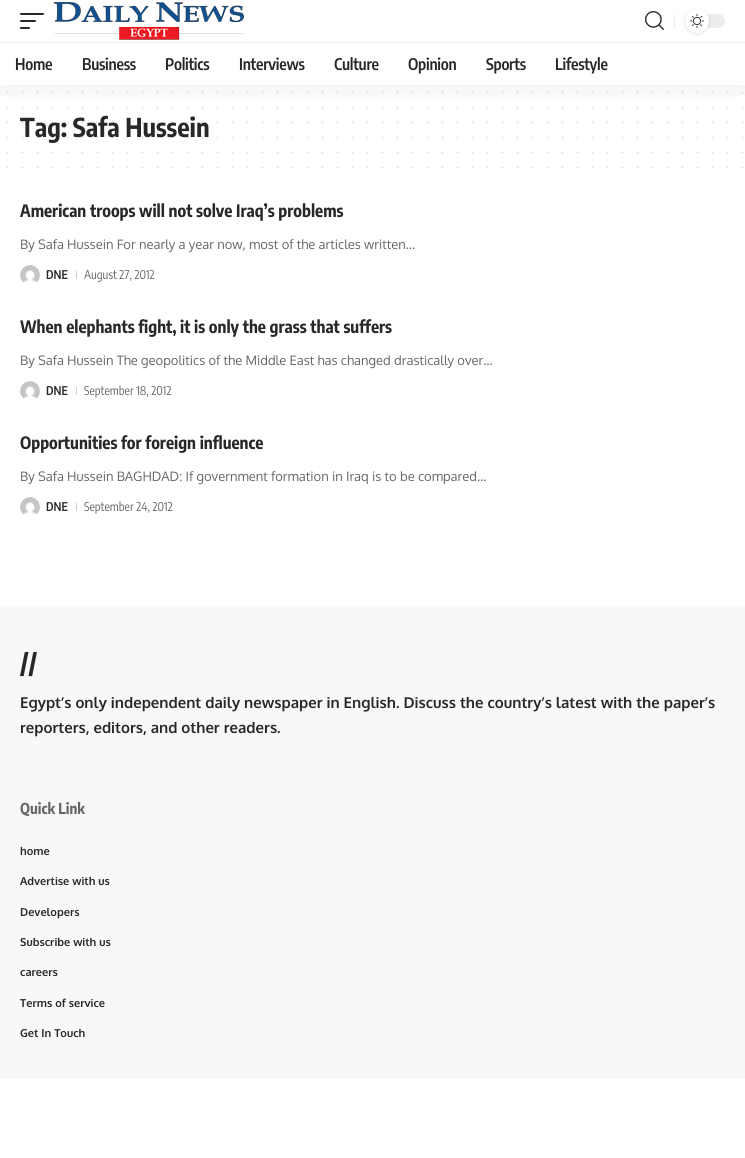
import math
import cairo

surface = cairo.ImageSurface(cairo.FORMAT_RGB24, 745, 1158)
ctx = cairo.Context(surface)
options = cairo.FontOptions()
options.set_hint_metrics(cairo.HINT_METRICS_OFF)
options.set_hint_style(cairo.HINT_STYLE_NONE)
ctx.set_font_options(options)
ctx.set_miter_limit(4)


def spaced_text(x, y, s, letter, word):
    ctx.move_to(x, y)
    for ch in s:
        ctx.show_text(ch)
        ctx.rel_move_to(letter + word * (ch == ' '), 0)


def round_rect(x, y, w, h, r):
    ctx.new_sub_path()
    for i, (u, v) in enumerate([(x + w - r, y + h - r), (x + r, y + h - r), (x + r, y + r), (x + w - r, y + r)]):
        ctx.arc(u, v, r, i * math.pi / 2, (i + 1) * math.pi / 2)
    ctx.close_path()


def shadow(x, y, w, h, r, blur, alpha):
    ctx.push_group_with_content(cairo.CONTENT_ALPHA)
    ctx.set_operator(cairo.OPERATOR_SOURCE)
    for i in range(15, -16, -2):
        e = blur * i / 6
        if min(w, h) + 2 * e > 0:
            ctx.set_source_rgba(0, 0, 0, alpha * math.erfc((i - 1) / 8.5) / 2)
            round_rect(x - e, y - e, w + 2 * e, h + 2 * e, max(0, min(r + e + blur * .6, min(w, h) / 2 + e)))
            ctx.fill()
    ctx.mask(ctx.pop_group())


def picture(path, x, y, w, h):
    ctx.save()
    ctx.set_source_surface(cairo.ImageSurface.create_from_png(path), x, y)
    ctx.rectangle(x, y, w, h)
    ctx.fill()
    ctx.restore()


ctx.set_source_rgb(1, 1, 1)
ctx.paint()
ctx.new_path()
ctx.move_to(7.5, 92.5)
ctx.line_to(742.7, 92.5)
ctx.set_source_rgb(0.875, 0.875, 0.875)
ctx.set_line_cap(cairo.LINE_CAP_ROUND)
ctx.set_dash([0, 15])
ctx.stroke()
ctx.new_path()
ctx.move_to(7.5, 107.5)
ctx.line_to(742.7, 107.5)
ctx.stroke()
ctx.select_font_face("Encode Sans Condensed", cairo.FONT_SLANT_NORMAL, cairo.FONT_WEIGHT_BOLD)
ctx.set_font_size(26)
ctx.set_source_rgb(0.157, 0.157, 0.157)
ctx.move_to(20, 137)
ctx.show_text("Tag: Safa Hussein")
ctx.new_path()
ctx.move_to(7.5, 122.5)
ctx.line_to(742.7, 122.5)
ctx.set_source_rgba(0.157, 0.157, 0.157, 0.15)
ctx.stroke()
ctx.save()
ctx.rectangle(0, 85, 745, 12)
ctx.clip()
ctx.set_source_rgb(0, 0, 0)
shadow(0, 4, 745, 85, 0, 15, 0.07)
ctx.restore()
ctx.set_source_rgb(0.157, 0.157, 0.157)
round_rect(20, 13, 24, 2, 1)
ctx.fill()
round_rect(20, 20, 16, 2, 1)
ctx.fill()
round_rect(20, 27, 10, 2, 1)
ctx.fill()
picture("img1.png", 54, 2, 190, 38)
picture("img2.png", 645, 11, 19, 19)
ctx.set_source_rgb(0.918, 0.918, 0.918)
ctx.rectangle(674, 14, 1, 14)
ctx.fill()
ctx.set_source_rgb(0.929, 0.929, 0.929)
round_rect(685, 14, 40, 14, 7)
ctx.fill()
ctx.set_source_rgb(0, 0, 0)
shadow(685, 10, 24, 24, 12, 2, 0.12)
ctx.set_source_rgb(1, 1, 1)
ctx.arc(697, 21, 12, 0, 2 * math.pi)
ctx.fill()
picture("img3.png", 690, 14, 14, 14)
ctx.set_source_rgb(0.918, 0.918, 0.918)
ctx.rectangle(0, 42, 745, 1)
ctx.fill()
ctx.select_font_face("Encode Sans Condensed SemiBold")
ctx.set_font_size(16)
ctx.set_source_rgb(0.157, 0.157, 0.157)
spaced_text(15, 70, "Home", -0.25, 0)
spaced_text(82, 70, "Business", -0.25, 0)
spaced_text(165, 70, "Politics", -0.25, 0)
spaced_text(239, 70, "Interviews", -0.25, 0)
spaced_text(334, 70, "Culture", -0.25, 0)
spaced_text(408, 70, "Opinion", -0.25, 0)
spaced_text(486, 70, "Sports", -0.25, 0)
spaced_text(555, 70, "Lifestyle", -0.25, 0)
ctx.new_path()
ctx.move_to(7.5, 137.5)
ctx.line_to(742.7, 137.5)
ctx.set_source_rgba(0.157, 0.157, 0.157, 0.15)
ctx.stroke()
ctx.new_path()
ctx.move_to(7.5, 152.5)
ctx.line_to(742.7, 152.5)
ctx.set_source_rgb(0.875, 0.875, 0.875)
ctx.stroke()
ctx.new_path()
ctx.move_to(7.5, 167.5)
ctx.line_to(742.7, 167.5)
ctx.stroke()
ctx.select_font_face("Encode Sans Condensed", cairo.FONT_SLANT_NORMAL, cairo.FONT_WEIGHT_BOLD)
ctx.set_font_size(17)
ctx.set_source_rgb(0.157, 0.157, 0.157)
ctx.move_to(20, 217)
ctx.show_text("American troops will not solve Iraq’s problems")
ctx.select_font_face("Oxygen")
ctx.set_font_size(13)
ctx.set_source_rgb(0.4, 0.4, 0.4)
ctx.move_to(20, 249)
ctx.show_text("By Safa Hussein For nearly a year now, most of the articles written…")
picture("img4.png", 20, 265, 20, 18)
ctx.select_font_face("Encode Sans Condensed SemiBold")
ctx.set_font_size(12)
ctx.set_source_rgb(0.157, 0.157, 0.157)
ctx.move_to(46, 279)
ctx.show_text("DNE")
ctx.set_source_rgb(0.82, 0.82, 0.82)
ctx.rectangle(76, 271, 1, 8)
ctx.fill()
ctx.select_font_face("Encode Sans Condensed")
ctx.set_source_rgb(0.4, 0.4, 0.4)
ctx.move_to(84, 279)
ctx.show_text("August 27, 2012")
ctx.select_font_face("Encode Sans Condensed", cairo.FONT_SLANT_NORMAL, cairo.FONT_WEIGHT_BOLD)
ctx.set_font_size(17)
ctx.set_source_rgb(0.157, 0.157, 0.157)
ctx.move_to(20, 333)
ctx.show_text("When elephants fight, it is only the grass that suffers")
ctx.select_font_face("Oxygen")
ctx.set_font_size(13)
ctx.set_source_rgb(0.4, 0.4, 0.4)
ctx.move_to(20, 365)
ctx.show_text("By Safa Hussein The geopolitics of the Middle East has changed drastically over…")
picture("img4.png", 20, 381, 20, 18)
ctx.select_font_face("Encode Sans Condensed SemiBold")
ctx.set_font_size(12)
ctx.set_source_rgb(0.157, 0.157, 0.157)
ctx.move_to(46, 395)
ctx.show_text("DNE")
ctx.set_source_rgb(0.82, 0.82, 0.82)
ctx.rectangle(76, 387, 1, 8)
ctx.fill()
ctx.select_font_face("Encode Sans Condensed")
ctx.set_source_rgb(0.4, 0.4, 0.4)
ctx.move_to(84, 395)
ctx.show_text("September 18, 2012")
ctx.select_font_face("Encode Sans Condensed", cairo.FONT_SLANT_NORMAL, cairo.FONT_WEIGHT_BOLD)
ctx.set_font_size(17)
ctx.set_source_rgb(0.157, 0.157, 0.157)
ctx.move_to(20, 449)
ctx.show_text("Opportunities for foreign influence")
ctx.select_font_face("Oxygen")
ctx.set_font_size(13)
ctx.set_source_rgb(0.4, 0.4, 0.4)
ctx.move_to(20, 481)
ctx.show_text("By Safa Hussein BAGHDAD: If government formation in Iraq is to be compared…")
picture("img5.png", 20, 497, 20, 18)
ctx.select_font_face("Encode Sans Condensed SemiBold")
ctx.set_font_size(12)
ctx.set_source_rgb(0.157, 0.157, 0.157)
ctx.move_to(46, 511)
ctx.show_text("DNE")
ctx.set_source_rgb(0.82, 0.82, 0.82)
ctx.rectangle(76, 503, 1, 8)
ctx.fill()
ctx.select_font_face("Encode Sans Condensed")
ctx.set_source_rgb(0.4, 0.4, 0.4)
ctx.move_to(84, 511)
ctx.show_text("September 24, 2012")
ctx.set_source_rgb(0.969, 0.969, 0.969)
ctx.rectangle(0, 606, 745, 473)
ctx.fill()
ctx.select_font_face("Encode Sans Condensed", cairo.FONT_SLANT_NORMAL, cairo.FONT_WEIGHT_BOLD)
ctx.set_font_size(26)
ctx.set_source_rgb(0.157, 0.157, 0.157)
ctx.move_to(20, 673)
ctx.show_text("//")
ctx.select_font_face("Oxygen", cairo.FONT_SLANT_NORMAL, cairo.FONT_WEIGHT_BOLD)
ctx.set_font_size(15)
ctx.move_to(20, 708)
ctx.show_text("Egypt’s only independent daily newspaper in English. Discuss the country’s latest with the paper’s")
ctx.move_to(20, 733)
ctx.show_text("reporters, editors, and other readers.")
ctx.select_font_face("Encode Sans Condensed", cairo.FONT_SLANT_NORMAL, cairo.FONT_WEIGHT_BOLD)
ctx.set_source_rgb(0.4, 0.4, 0.4)
ctx.move_to(20, 814)
ctx.show_text("Quick Link")
ctx.select_font_face("Oxygen", cairo.FONT_SLANT_NORMAL, cairo.FONT_WEIGHT_BOLD)
ctx.set_font_size(11)
ctx.set_source_rgb(0.157, 0.157, 0.157)
ctx.move_to(20, 855)
ctx.show_text("home")
ctx.move_to(20, 885)
ctx.show_text("Advertise with us")
ctx.move_to(20, 916)
ctx.show_text("Developers")
ctx.move_to(20, 946)
ctx.show_text("Subscribe with us")
ctx.move_to(20, 976)
ctx.show_text("careers")
ctx.move_to(20, 1007)
ctx.show_text("Terms of service")
ctx.move_to(20, 1037)
ctx.show_text("Get In Touch")
surface.write_to_png("page.png")
